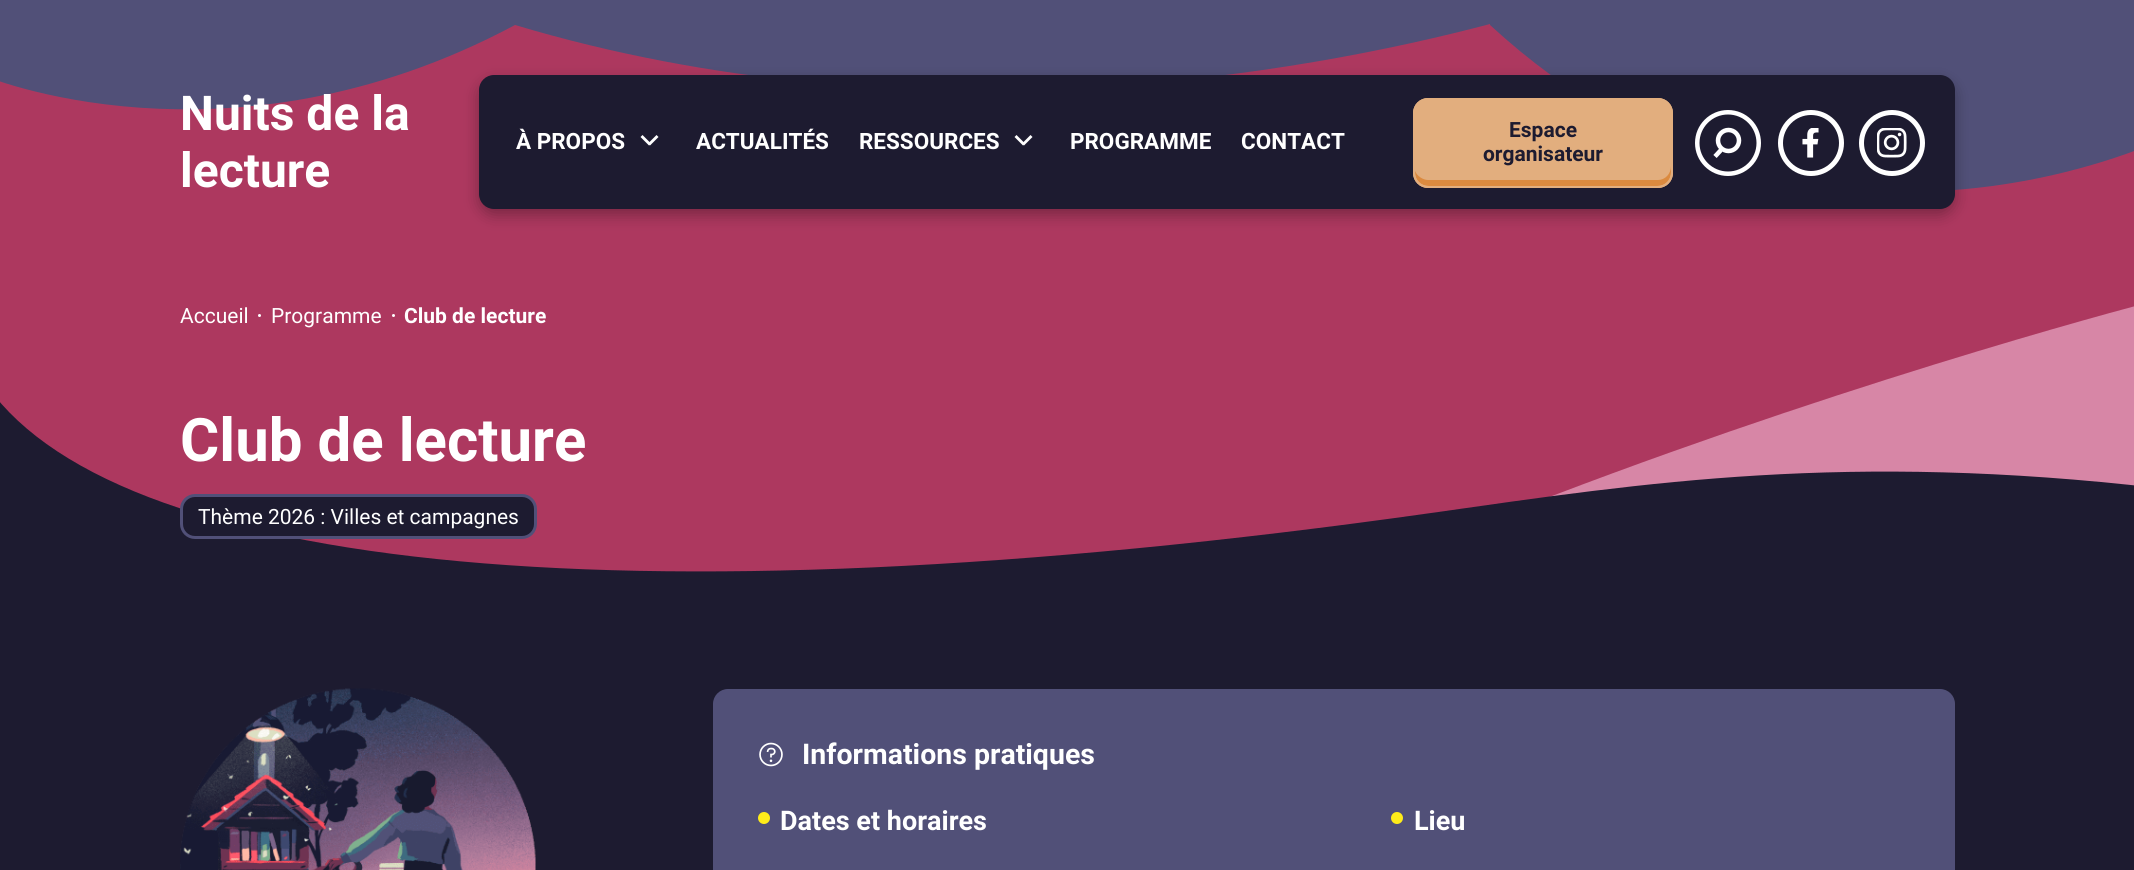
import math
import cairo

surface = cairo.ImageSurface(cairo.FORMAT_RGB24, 2134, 870)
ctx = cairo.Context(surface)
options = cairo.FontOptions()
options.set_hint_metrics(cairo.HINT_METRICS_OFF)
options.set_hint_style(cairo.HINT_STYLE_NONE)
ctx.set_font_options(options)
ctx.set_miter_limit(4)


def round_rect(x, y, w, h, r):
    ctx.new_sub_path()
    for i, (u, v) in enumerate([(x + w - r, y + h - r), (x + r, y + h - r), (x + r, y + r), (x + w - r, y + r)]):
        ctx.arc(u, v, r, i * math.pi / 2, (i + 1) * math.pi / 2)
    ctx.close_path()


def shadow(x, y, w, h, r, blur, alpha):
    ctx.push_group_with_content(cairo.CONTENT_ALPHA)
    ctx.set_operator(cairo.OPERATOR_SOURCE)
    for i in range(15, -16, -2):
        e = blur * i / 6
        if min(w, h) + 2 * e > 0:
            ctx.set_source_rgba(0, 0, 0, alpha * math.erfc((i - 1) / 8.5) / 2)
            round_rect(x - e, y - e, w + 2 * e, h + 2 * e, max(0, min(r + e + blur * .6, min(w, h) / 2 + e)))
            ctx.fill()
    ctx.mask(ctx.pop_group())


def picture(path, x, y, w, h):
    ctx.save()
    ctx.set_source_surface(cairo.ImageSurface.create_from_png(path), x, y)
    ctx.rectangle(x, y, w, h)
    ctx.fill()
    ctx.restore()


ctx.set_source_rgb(0.678, 0.22, 0.373)
ctx.paint()
ctx.set_source_rgb(0.318, 0.314, 0.471)
ctx.new_path()
ctx.move_to(515, 25)
ctx.curve_to(913, 144, 1301, 74, 1490, 24)
ctx.line_to(1490, 25)
ctx.curve_to(1812, 321, 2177, 133, 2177, 133)
ctx.line_to(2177, -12)
ctx.line_to(1608, -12)
ctx.curve_to(1608, -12, 1252, -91, 1408, -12)
ctx.line_to(-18, -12)
ctx.line_to(-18, 75)
ctx.curve_to(-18, 75, 227, 179, 515, 25)
ctx.close_path()
ctx.fill()
ctx.select_font_face("Roboto", cairo.FONT_SLANT_NORMAL, cairo.FONT_WEIGHT_BOLD)
ctx.set_font_size(48)
ctx.set_source_rgb(1, 1, 1)
ctx.move_to(180, 130)
ctx.show_text("Nuits de la")
ctx.move_to(180, 187)
ctx.show_text("lecture")
ctx.set_source_rgb(0, 0, 0)
shadow(479, 81, 1476, 134, 15, 7.5, 0.3)
ctx.set_source_rgb(0.114, 0.106, 0.188)
round_rect(479, 75, 1476, 134, 15)
ctx.fill()
ctx.set_font_size(22.5)
ctx.set_source_rgb(1, 1, 1)
ctx.move_to(516, 149)
ctx.show_text("À PROPOS")
ctx.new_path()
ctx.move_to(640.5, 137)
ctx.line_to(642.5, 135)
ctx.line_to(651, 143.5)
ctx.line_to(649, 145.5)
ctx.close_path()
ctx.fill()
ctx.new_path()
ctx.move_to(656.5, 135)
ctx.line_to(658.5, 137)
ctx.line_to(650, 145.5)
ctx.line_to(648, 143.5)
ctx.close_path()
ctx.fill()
ctx.move_to(696, 149)
ctx.show_text("ACTUALITÉS")
ctx.move_to(859, 149)
ctx.show_text("RESSOURCES")
ctx.new_path()
ctx.move_to(1014.5, 137)
ctx.line_to(1016.5, 135)
ctx.line_to(1025, 143.5)
ctx.line_to(1023, 145.5)
ctx.close_path()
ctx.fill()
ctx.new_path()
ctx.move_to(1030.5, 135)
ctx.line_to(1032.5, 137)
ctx.line_to(1024, 145.5)
ctx.line_to(1022, 143.5)
ctx.close_path()
ctx.fill()
ctx.move_to(1070, 149)
ctx.show_text("PROGRAMME")
ctx.move_to(1241, 149)
ctx.show_text("CONTACT")
ctx.set_source_rgb(0.886, 0.682, 0.494)
round_rect(1413, 98, 260, 90, 15)
ctx.fill()
ctx.set_source_rgb(0.859, 0.541, 0.247)
ctx.new_path()
ctx.move_to(1415, 171)
ctx.line_to(1415, 172)
ctx.curve_to(1415, 180, 1421, 186, 1429, 186)
ctx.line_to(1657, 186)
ctx.curve_to(1665, 186, 1671, 180, 1671, 172)
ctx.line_to(1671, 166)
ctx.curve_to(1671, 174, 1665, 180, 1658, 180)
ctx.line_to(1428, 180)
ctx.curve_to(1423, 180, 1417, 176, 1415, 171)
ctx.close_path()
ctx.fill()
round_rect(1414, 99, 258, 88, 14)
ctx.set_source_rgb(0.886, 0.682, 0.494)
ctx.stroke()
ctx.set_font_size(21)
ctx.set_source_rgb(0.114, 0.106, 0.188)
ctx.move_to(1509, 137)
ctx.show_text("Espace")
ctx.move_to(1483, 161)
ctx.show_text("organisateur")
ctx.new_path()
ctx.move_to(1715, 156.5)
ctx.line_to(1721, 150)
ctx.set_source_rgb(1, 1, 1)
ctx.set_line_width(4.5)
ctx.stroke()
ctx.arc(1728.5, 140.5, 10.5, 0, 2 * math.pi)
ctx.stroke()
ctx.arc(1728, 143, 30.75, 0, 2 * math.pi)
ctx.stroke()
ctx.arc(1811, 143, 30.5, 0, 2 * math.pi)
ctx.set_line_width(5)
ctx.stroke()
picture("img1.png", 1802, 128, 17, 30)
ctx.arc(1892, 143, 30.5, 0, 2 * math.pi)
ctx.stroke()
picture("img2.png", 1877, 128, 30, 30)
ctx.set_source_rgb(0.843, 0.525, 0.651)
ctx.new_path()
ctx.move_to(248, 633)
ctx.curve_to(576, 699, 603, 682, 603, 682)
ctx.curve_to(603, 682, 1228, 621, 1552, 496)
ctx.curve_to(1877, 372, 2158, 300, 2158, 300)
ctx.line_to(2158, 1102)
ctx.curve_to(1622, 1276, 1165, 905, 1165, 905)
ctx.curve_to(710, 865, 27, 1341, 27, 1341)
ctx.line_to(27, 555)
ctx.curve_to(-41, 503, 27, 458, 27, 458)
ctx.line_to(27, 555)
ctx.curve_to(60, 580, 126, 608, 248, 633)
ctx.close_path()
ctx.fill()
ctx.set_source_rgb(0.114, 0.106, 0.188)
ctx.new_path()
ctx.move_to(-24, 368)
ctx.line_to(-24, 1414)
ctx.line_to(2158, 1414)
ctx.line_to(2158, 488)
ctx.curve_to(1846, 452, 1649, 482, 1431, 513)
ctx.curve_to(609, 629, 86, 568, -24, 368)
ctx.close_path()
ctx.fill()
ctx.select_font_face("Roboto")
ctx.set_source_rgb(1, 1, 1)
ctx.move_to(180, 323)
ctx.show_text("Accueil")
ctx.new_path()
ctx.arc(259.5, 315.5, 1.5, 0, 2 * math.pi)
ctx.fill()
ctx.move_to(271, 323)
ctx.show_text("Programme")
ctx.new_path()
ctx.arc(393.5, 315.5, 1.5, 0, 2 * math.pi)
ctx.fill()
ctx.select_font_face("Roboto", cairo.FONT_SLANT_NORMAL, cairo.FONT_WEIGHT_BOLD)
ctx.move_to(404, 323)
ctx.show_text("Club de lecture")
ctx.set_font_size(60)
ctx.move_to(180, 461)
ctx.show_text("Club de lecture")
ctx.set_source_rgb(0.114, 0.106, 0.188)
round_rect(181.5, 495.5, 354, 42, 13.5)
ctx.fill_preserve()
ctx.set_source_rgb(0.318, 0.314, 0.471)
ctx.set_line_width(3)
ctx.stroke()
ctx.select_font_face("Roboto")
ctx.set_font_size(21)
ctx.set_source_rgb(1, 1, 1)
ctx.move_to(198, 524)
ctx.show_text("Thème 2026 : Villes et campagnes")
picture("img3.png", 180, 688, 356, 182)
ctx.set_source_rgb(0.318, 0.314, 0.471)
round_rect(713, 689, 1242, 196, 15)
ctx.fill()
picture("img4.png", 759, 742, 24, 25)
ctx.select_font_face("Roboto", cairo.FONT_SLANT_NORMAL, cairo.FONT_WEIGHT_BOLD)
ctx.set_font_size(28.5)
ctx.set_source_rgb(1, 1, 1)
ctx.move_to(802, 764)
ctx.show_text("Informations pratiques")
ctx.set_source_rgb(1, 0.925, 0.098)
ctx.new_path()
ctx.arc(764, 818, 6, 0, 2 * math.pi)
ctx.fill()
ctx.set_font_size(27)
ctx.set_source_rgb(1, 1, 1)
ctx.move_to(780, 830)
ctx.show_text("Dates et horaires")
ctx.set_source_rgb(1, 0.925, 0.098)
ctx.new_path()
ctx.arc(1397, 818, 6, 0, 2 * math.pi)
ctx.fill()
ctx.set_source_rgb(1, 1, 1)
ctx.move_to(1414, 830)
ctx.show_text("Lieu")
surface.write_to_png("page.png")
